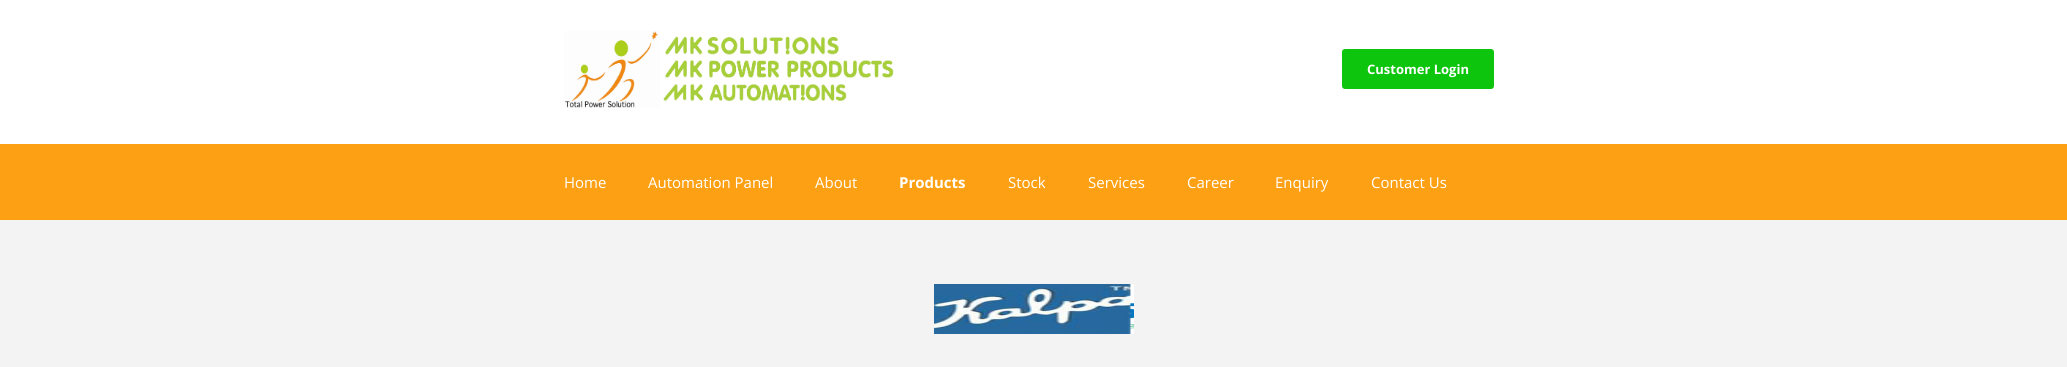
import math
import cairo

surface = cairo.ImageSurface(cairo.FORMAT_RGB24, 2067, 367)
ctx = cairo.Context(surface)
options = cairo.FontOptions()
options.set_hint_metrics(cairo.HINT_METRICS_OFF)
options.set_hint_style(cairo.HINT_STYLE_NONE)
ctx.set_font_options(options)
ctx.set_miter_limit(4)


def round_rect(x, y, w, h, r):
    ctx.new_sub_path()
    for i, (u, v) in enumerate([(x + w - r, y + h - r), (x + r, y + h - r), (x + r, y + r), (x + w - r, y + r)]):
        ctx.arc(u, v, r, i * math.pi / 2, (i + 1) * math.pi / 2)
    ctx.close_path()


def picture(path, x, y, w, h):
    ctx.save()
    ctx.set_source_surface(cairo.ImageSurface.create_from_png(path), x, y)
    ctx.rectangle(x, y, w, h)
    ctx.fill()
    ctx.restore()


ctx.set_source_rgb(1, 1, 1)
ctx.paint()
picture("img1.png", 564, 31, 330, 77)
ctx.set_source_rgb(0.047, 0.773, 0.047)
round_rect(1342, 49, 152, 40, 3)
ctx.fill()
ctx.select_font_face("Open Sans", cairo.FONT_SLANT_NORMAL, cairo.FONT_WEIGHT_BOLD)
ctx.set_font_size(13)
ctx.set_source_rgb(1, 1, 1)
ctx.move_to(1367, 74)
ctx.show_text("Customer Login")
ctx.set_source_rgb(0.992, 0.627, 0.078)
ctx.rectangle(0, 144, 2067, 76)
ctx.fill()
ctx.select_font_face("Open Sans")
ctx.set_font_size(15)
ctx.set_source_rgb(1, 1, 1)
ctx.move_to(564, 188)
ctx.show_text("Home")
ctx.move_to(648, 188)
ctx.show_text("Automation Panel")
ctx.move_to(815, 188)
ctx.show_text("About")
ctx.select_font_face("Open Sans", cairo.FONT_SLANT_NORMAL, cairo.FONT_WEIGHT_BOLD)
ctx.move_to(899, 188)
ctx.show_text("Products")
ctx.select_font_face("Open Sans")
ctx.move_to(1008, 188)
ctx.show_text("Stock")
ctx.move_to(1088, 188)
ctx.show_text("Services")
ctx.move_to(1187, 188)
ctx.show_text("Career")
ctx.move_to(1275, 188)
ctx.show_text("Enquiry")
ctx.move_to(1371, 188)
ctx.show_text("Contact Us")
ctx.set_source_rgb(0.953, 0.953, 0.953)
ctx.rectangle(0, 220, 2067, 147)
ctx.fill()
picture("img2.png", 934, 284, 200, 50)
surface.write_to_png("page.png")
